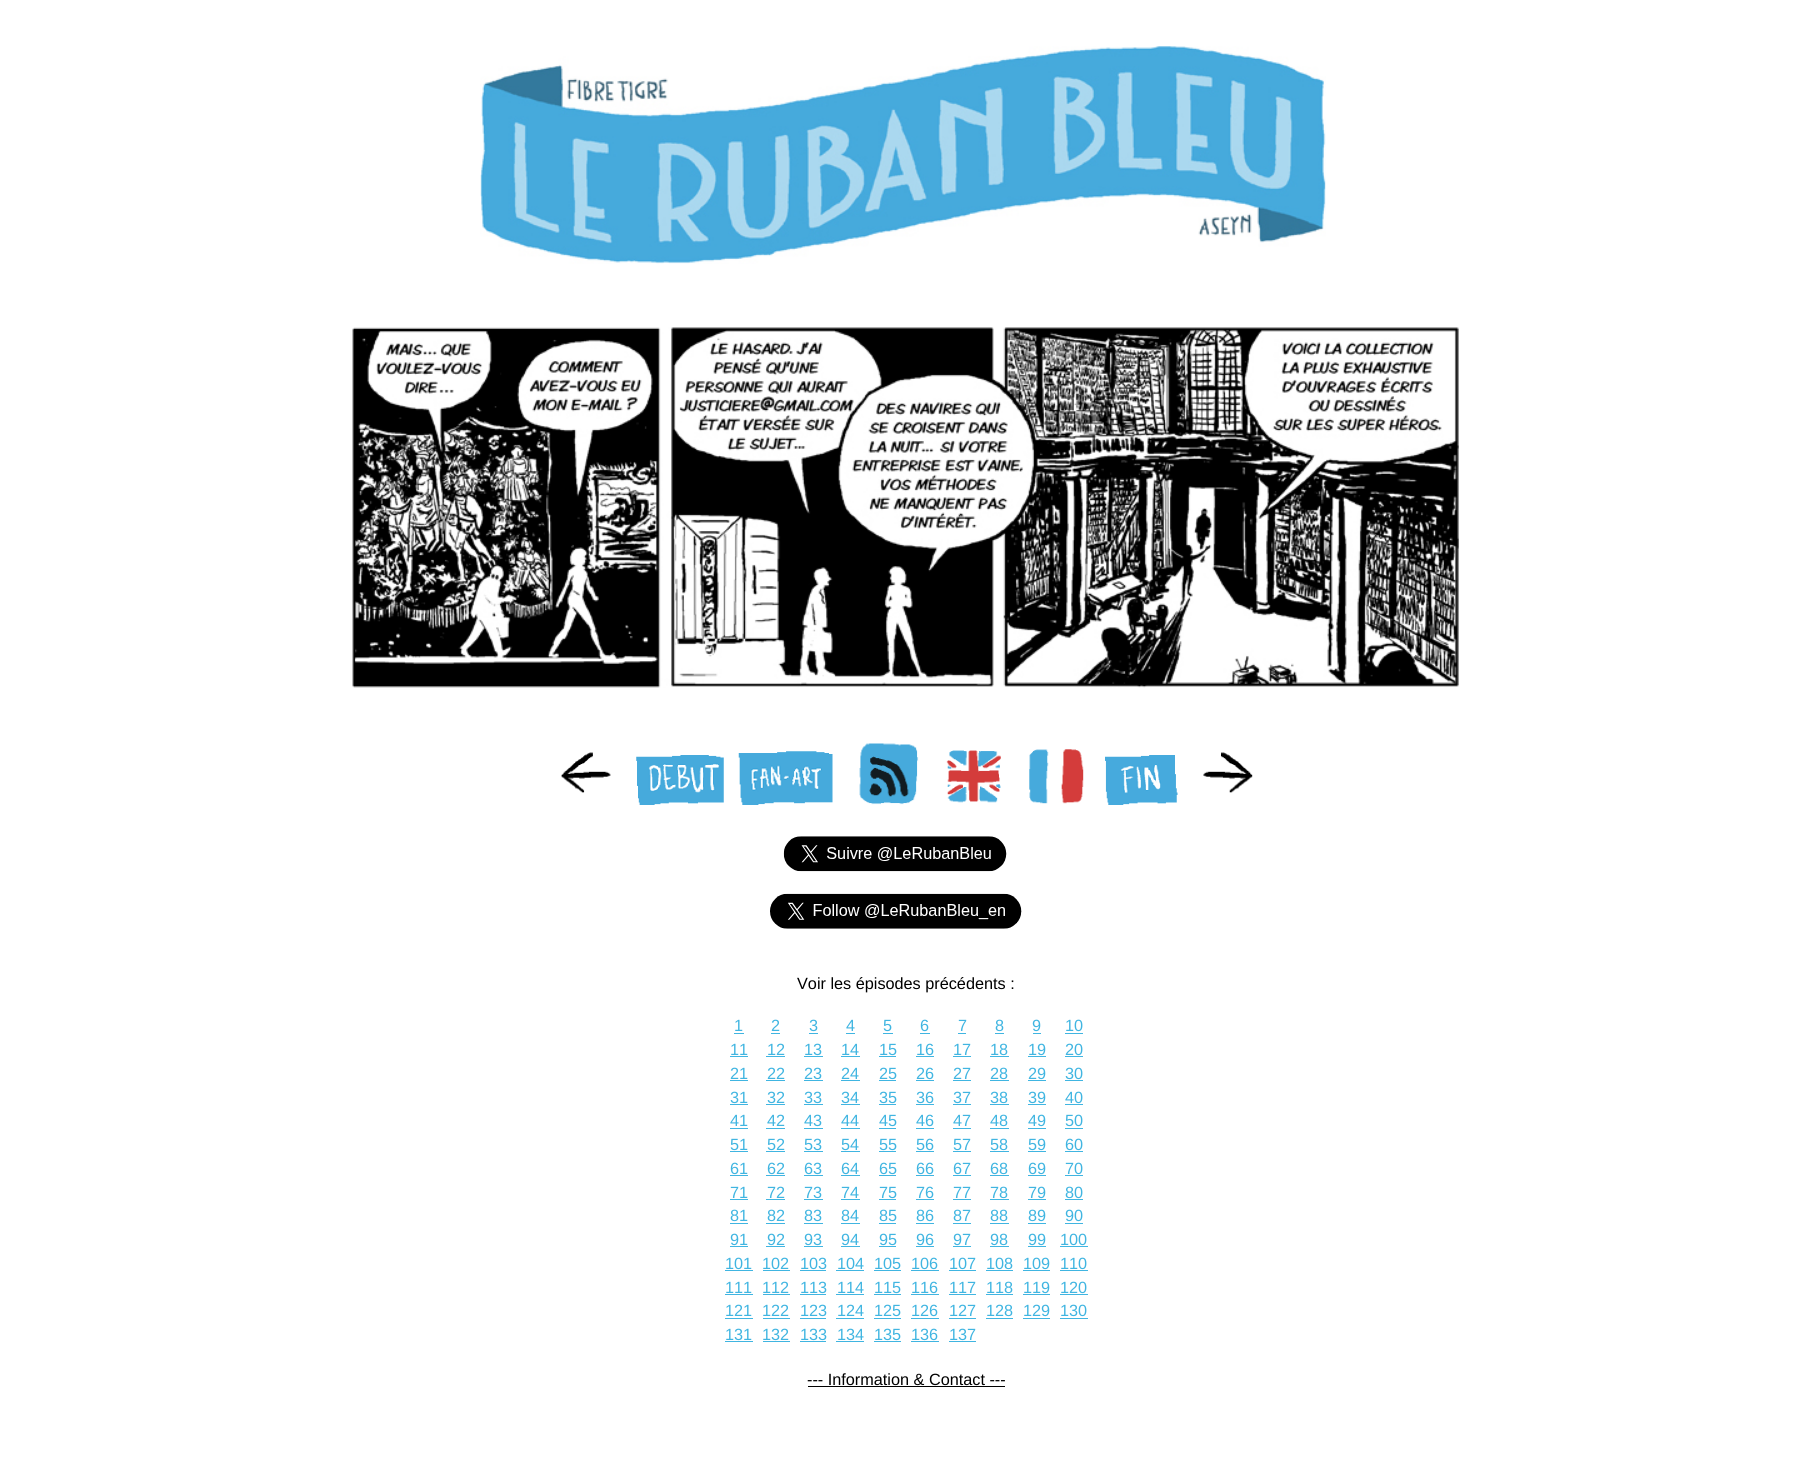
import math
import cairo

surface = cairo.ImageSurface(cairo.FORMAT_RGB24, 1812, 1469)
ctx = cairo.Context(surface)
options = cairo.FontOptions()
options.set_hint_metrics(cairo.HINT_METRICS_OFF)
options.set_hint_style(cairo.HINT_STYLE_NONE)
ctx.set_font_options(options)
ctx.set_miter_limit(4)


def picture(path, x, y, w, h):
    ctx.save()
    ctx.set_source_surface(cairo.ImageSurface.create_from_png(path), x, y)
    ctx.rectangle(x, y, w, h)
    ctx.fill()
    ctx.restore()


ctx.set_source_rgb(1, 1, 1)
ctx.paint()
picture("img1.png", 480, 46, 846, 218)
picture("img2.png", 352, 327, 1107, 361)
picture("img3.png", 561, 752, 50, 41)
picture("img4.png", 636, 755, 88, 50)
picture("img5.png", 738, 751, 95, 54)
picture("img6.png", 859, 743, 60, 62)
picture("img7.png", 946, 750, 55, 53)
picture("img8.png", 1029, 749, 55, 55)
picture("img9.png", 1105, 755, 73, 50)
picture("img10.png", 1203, 752, 50, 41)
picture("img11.png", 783, 836, 224, 36)
picture("img12.png", 770, 893, 252, 36)
ctx.select_font_face("Liberation Sans")
ctx.set_font_size(16.25)
ctx.set_source_rgb(0, 0, 0)
ctx.move_to(797, 989)
ctx.show_text("Voir les épisodes précédents :")
ctx.set_source_rgb(0.251, 0.71, 0.882)
ctx.move_to(734, 1031)
ctx.show_text("1")
ctx.rectangle(734, 1033, 10, 1)
ctx.fill()
ctx.move_to(771, 1031)
ctx.show_text("2")
ctx.rectangle(771, 1033, 9, 1)
ctx.fill()
ctx.move_to(809, 1031)
ctx.show_text("3")
ctx.rectangle(809, 1033, 9, 1)
ctx.fill()
ctx.move_to(846, 1031)
ctx.show_text("4")
ctx.rectangle(846, 1033, 9, 1)
ctx.fill()
ctx.move_to(883, 1031)
ctx.show_text("5")
ctx.rectangle(883, 1033, 10, 1)
ctx.fill()
ctx.move_to(920, 1031)
ctx.show_text("6")
ctx.rectangle(920, 1033, 10, 1)
ctx.fill()
ctx.move_to(958, 1031)
ctx.show_text("7")
ctx.rectangle(958, 1033, 8, 1)
ctx.fill()
ctx.move_to(995, 1031)
ctx.show_text("8")
ctx.rectangle(995, 1033, 9, 1)
ctx.fill()
ctx.move_to(1032, 1031)
ctx.show_text("9")
ctx.rectangle(1033, 1033, 8, 1)
ctx.fill()
ctx.move_to(1065, 1031)
ctx.show_text("10")
ctx.rectangle(1065, 1033, 18, 1)
ctx.fill()
ctx.move_to(730, 1055)
ctx.show_text("11")
ctx.rectangle(730, 1056, 18, 1)
ctx.fill()
ctx.move_to(767, 1055)
ctx.show_text("12")
ctx.rectangle(766, 1056, 19, 1)
ctx.fill()
ctx.move_to(804, 1055)
ctx.show_text("13")
ctx.rectangle(804, 1056, 19, 1)
ctx.fill()
ctx.move_to(841, 1055)
ctx.show_text("14")
ctx.rectangle(841, 1056, 19, 1)
ctx.fill()
ctx.move_to(879, 1055)
ctx.show_text("15")
ctx.rectangle(879, 1056, 17, 1)
ctx.fill()
ctx.move_to(916, 1055)
ctx.show_text("16")
ctx.rectangle(916, 1056, 18, 1)
ctx.fill()
ctx.move_to(953, 1055)
ctx.show_text("17")
ctx.rectangle(953, 1056, 18, 1)
ctx.fill()
ctx.move_to(990, 1055)
ctx.show_text("18")
ctx.rectangle(990, 1056, 19, 1)
ctx.fill()
ctx.move_to(1028, 1055)
ctx.show_text("19")
ctx.rectangle(1028, 1056, 18, 1)
ctx.fill()
ctx.move_to(1065, 1055)
ctx.show_text("20")
ctx.rectangle(1065, 1056, 18, 1)
ctx.fill()
ctx.move_to(730, 1079)
ctx.show_text("21")
ctx.rectangle(730, 1080, 18, 1)
ctx.fill()
ctx.move_to(767, 1079)
ctx.show_text("22")
ctx.rectangle(766, 1080, 19, 1)
ctx.fill()
ctx.move_to(804, 1079)
ctx.show_text("23")
ctx.rectangle(804, 1080, 19, 1)
ctx.fill()
ctx.move_to(841, 1079)
ctx.show_text("24")
ctx.rectangle(841, 1080, 19, 1)
ctx.fill()
ctx.move_to(879, 1079)
ctx.show_text("25")
ctx.rectangle(879, 1080, 17, 1)
ctx.fill()
ctx.move_to(916, 1079)
ctx.show_text("26")
ctx.rectangle(916, 1080, 18, 1)
ctx.fill()
ctx.move_to(953, 1079)
ctx.show_text("27")
ctx.rectangle(953, 1080, 18, 1)
ctx.fill()
ctx.move_to(990, 1079)
ctx.show_text("28")
ctx.rectangle(990, 1080, 19, 1)
ctx.fill()
ctx.move_to(1028, 1079)
ctx.show_text("29")
ctx.rectangle(1028, 1080, 18, 1)
ctx.fill()
ctx.move_to(1065, 1079)
ctx.show_text("30")
ctx.rectangle(1065, 1080, 18, 1)
ctx.fill()
ctx.move_to(730, 1103)
ctx.show_text("31")
ctx.rectangle(730, 1104, 18, 1)
ctx.fill()
ctx.move_to(767, 1103)
ctx.show_text("32")
ctx.rectangle(766, 1104, 19, 1)
ctx.fill()
ctx.move_to(804, 1103)
ctx.show_text("33")
ctx.rectangle(804, 1104, 19, 1)
ctx.fill()
ctx.move_to(841, 1103)
ctx.show_text("34")
ctx.rectangle(841, 1104, 19, 1)
ctx.fill()
ctx.move_to(879, 1103)
ctx.show_text("35")
ctx.rectangle(879, 1104, 17, 1)
ctx.fill()
ctx.move_to(916, 1103)
ctx.show_text("36")
ctx.rectangle(916, 1104, 18, 1)
ctx.fill()
ctx.move_to(953, 1103)
ctx.show_text("37")
ctx.rectangle(953, 1104, 18, 1)
ctx.fill()
ctx.move_to(990, 1103)
ctx.show_text("38")
ctx.rectangle(990, 1104, 19, 1)
ctx.fill()
ctx.move_to(1028, 1103)
ctx.show_text("39")
ctx.rectangle(1028, 1104, 18, 1)
ctx.fill()
ctx.move_to(1065, 1103)
ctx.show_text("40")
ctx.rectangle(1065, 1104, 18, 1)
ctx.fill()
ctx.move_to(730, 1126)
ctx.show_text("41")
ctx.rectangle(730, 1128, 18, 1)
ctx.fill()
ctx.move_to(767, 1126)
ctx.show_text("42")
ctx.rectangle(766, 1128, 19, 1)
ctx.fill()
ctx.move_to(804, 1126)
ctx.show_text("43")
ctx.rectangle(804, 1128, 19, 1)
ctx.fill()
ctx.move_to(841, 1126)
ctx.show_text("44")
ctx.rectangle(841, 1128, 19, 1)
ctx.fill()
ctx.move_to(879, 1126)
ctx.show_text("45")
ctx.rectangle(879, 1128, 17, 1)
ctx.fill()
ctx.move_to(916, 1126)
ctx.show_text("46")
ctx.rectangle(916, 1128, 18, 1)
ctx.fill()
ctx.move_to(953, 1126)
ctx.show_text("47")
ctx.rectangle(953, 1128, 18, 1)
ctx.fill()
ctx.move_to(990, 1126)
ctx.show_text("48")
ctx.rectangle(990, 1128, 19, 1)
ctx.fill()
ctx.move_to(1028, 1126)
ctx.show_text("49")
ctx.rectangle(1028, 1128, 18, 1)
ctx.fill()
ctx.move_to(1065, 1126)
ctx.show_text("50")
ctx.rectangle(1065, 1128, 18, 1)
ctx.fill()
ctx.move_to(730, 1150)
ctx.show_text("51")
ctx.rectangle(730, 1151, 18, 1)
ctx.fill()
ctx.move_to(767, 1150)
ctx.show_text("52")
ctx.rectangle(766, 1151, 19, 1)
ctx.fill()
ctx.move_to(804, 1150)
ctx.show_text("53")
ctx.rectangle(804, 1151, 19, 1)
ctx.fill()
ctx.move_to(841, 1150)
ctx.show_text("54")
ctx.rectangle(841, 1151, 19, 1)
ctx.fill()
ctx.move_to(879, 1150)
ctx.show_text("55")
ctx.rectangle(879, 1151, 17, 1)
ctx.fill()
ctx.move_to(916, 1150)
ctx.show_text("56")
ctx.rectangle(916, 1151, 18, 1)
ctx.fill()
ctx.move_to(953, 1150)
ctx.show_text("57")
ctx.rectangle(953, 1151, 18, 1)
ctx.fill()
ctx.move_to(990, 1150)
ctx.show_text("58")
ctx.rectangle(990, 1151, 19, 1)
ctx.fill()
ctx.move_to(1028, 1150)
ctx.show_text("59")
ctx.rectangle(1028, 1151, 18, 1)
ctx.fill()
ctx.move_to(1065, 1150)
ctx.show_text("60")
ctx.rectangle(1065, 1151, 18, 1)
ctx.fill()
ctx.move_to(730, 1174)
ctx.show_text("61")
ctx.rectangle(730, 1175, 18, 1)
ctx.fill()
ctx.move_to(767, 1174)
ctx.show_text("62")
ctx.rectangle(766, 1175, 19, 1)
ctx.fill()
ctx.move_to(804, 1174)
ctx.show_text("63")
ctx.rectangle(804, 1175, 19, 1)
ctx.fill()
ctx.move_to(841, 1174)
ctx.show_text("64")
ctx.rectangle(841, 1175, 19, 1)
ctx.fill()
ctx.move_to(879, 1174)
ctx.show_text("65")
ctx.rectangle(879, 1175, 17, 1)
ctx.fill()
ctx.move_to(916, 1174)
ctx.show_text("66")
ctx.rectangle(916, 1175, 18, 1)
ctx.fill()
ctx.move_to(953, 1174)
ctx.show_text("67")
ctx.rectangle(953, 1175, 18, 1)
ctx.fill()
ctx.move_to(990, 1174)
ctx.show_text("68")
ctx.rectangle(990, 1175, 19, 1)
ctx.fill()
ctx.move_to(1028, 1174)
ctx.show_text("69")
ctx.rectangle(1028, 1175, 18, 1)
ctx.fill()
ctx.move_to(1065, 1174)
ctx.show_text("70")
ctx.rectangle(1065, 1175, 18, 1)
ctx.fill()
ctx.move_to(730, 1198)
ctx.show_text("71")
ctx.rectangle(730, 1199, 18, 1)
ctx.fill()
ctx.move_to(767, 1198)
ctx.show_text("72")
ctx.rectangle(766, 1199, 19, 1)
ctx.fill()
ctx.move_to(804, 1198)
ctx.show_text("73")
ctx.rectangle(804, 1199, 19, 1)
ctx.fill()
ctx.move_to(841, 1198)
ctx.show_text("74")
ctx.rectangle(841, 1199, 19, 1)
ctx.fill()
ctx.move_to(879, 1198)
ctx.show_text("75")
ctx.rectangle(879, 1199, 17, 1)
ctx.fill()
ctx.move_to(916, 1198)
ctx.show_text("76")
ctx.rectangle(916, 1199, 18, 1)
ctx.fill()
ctx.move_to(953, 1198)
ctx.show_text("77")
ctx.rectangle(953, 1199, 18, 1)
ctx.fill()
ctx.move_to(990, 1198)
ctx.show_text("78")
ctx.rectangle(990, 1199, 19, 1)
ctx.fill()
ctx.move_to(1028, 1198)
ctx.show_text("79")
ctx.rectangle(1028, 1199, 18, 1)
ctx.fill()
ctx.move_to(1065, 1198)
ctx.show_text("80")
ctx.rectangle(1065, 1199, 18, 1)
ctx.fill()
ctx.move_to(730, 1221)
ctx.show_text("81")
ctx.rectangle(730, 1223, 18, 1)
ctx.fill()
ctx.move_to(767, 1221)
ctx.show_text("82")
ctx.rectangle(766, 1223, 19, 1)
ctx.fill()
ctx.move_to(804, 1221)
ctx.show_text("83")
ctx.rectangle(804, 1223, 19, 1)
ctx.fill()
ctx.move_to(841, 1221)
ctx.show_text("84")
ctx.rectangle(841, 1223, 19, 1)
ctx.fill()
ctx.move_to(879, 1221)
ctx.show_text("85")
ctx.rectangle(879, 1223, 17, 1)
ctx.fill()
ctx.move_to(916, 1221)
ctx.show_text("86")
ctx.rectangle(916, 1223, 18, 1)
ctx.fill()
ctx.move_to(953, 1221)
ctx.show_text("87")
ctx.rectangle(953, 1223, 18, 1)
ctx.fill()
ctx.move_to(990, 1221)
ctx.show_text("88")
ctx.rectangle(990, 1223, 19, 1)
ctx.fill()
ctx.move_to(1028, 1221)
ctx.show_text("89")
ctx.rectangle(1028, 1223, 18, 1)
ctx.fill()
ctx.move_to(1065, 1221)
ctx.show_text("90")
ctx.rectangle(1065, 1223, 18, 1)
ctx.fill()
ctx.move_to(730, 1245)
ctx.show_text("91")
ctx.rectangle(730, 1246, 18, 1)
ctx.fill()
ctx.move_to(767, 1245)
ctx.show_text("92")
ctx.rectangle(766, 1246, 19, 1)
ctx.fill()
ctx.move_to(804, 1245)
ctx.show_text("93")
ctx.rectangle(804, 1246, 19, 1)
ctx.fill()
ctx.move_to(841, 1245)
ctx.show_text("94")
ctx.rectangle(841, 1246, 19, 1)
ctx.fill()
ctx.move_to(879, 1245)
ctx.show_text("95")
ctx.rectangle(879, 1246, 17, 1)
ctx.fill()
ctx.move_to(916, 1245)
ctx.show_text("96")
ctx.rectangle(916, 1246, 18, 1)
ctx.fill()
ctx.move_to(953, 1245)
ctx.show_text("97")
ctx.rectangle(953, 1246, 18, 1)
ctx.fill()
ctx.move_to(990, 1245)
ctx.show_text("98")
ctx.rectangle(990, 1246, 19, 1)
ctx.fill()
ctx.move_to(1028, 1245)
ctx.show_text("99")
ctx.rectangle(1028, 1246, 18, 1)
ctx.fill()
ctx.move_to(1060, 1245)
ctx.show_text("100")
ctx.rectangle(1060, 1246, 28, 1)
ctx.fill()
ctx.move_to(725, 1269)
ctx.show_text("101")
ctx.rectangle(725, 1270, 28, 1)
ctx.fill()
ctx.move_to(762, 1269)
ctx.show_text("102")
ctx.rectangle(763, 1270, 27, 1)
ctx.fill()
ctx.move_to(800, 1269)
ctx.show_text("103")
ctx.rectangle(800, 1270, 26, 1)
ctx.fill()
ctx.move_to(837, 1269)
ctx.show_text("104")
ctx.rectangle(836, 1270, 28, 1)
ctx.fill()
ctx.move_to(874, 1269)
ctx.show_text("105")
ctx.rectangle(874, 1270, 27, 1)
ctx.fill()
ctx.move_to(911, 1269)
ctx.show_text("106")
ctx.rectangle(911, 1270, 28, 1)
ctx.fill()
ctx.move_to(949, 1269)
ctx.show_text("107")
ctx.rectangle(949, 1270, 27, 1)
ctx.fill()
ctx.move_to(986, 1269)
ctx.show_text("108")
ctx.rectangle(986, 1270, 27, 1)
ctx.fill()
ctx.move_to(1023, 1269)
ctx.show_text("109")
ctx.rectangle(1023, 1270, 27, 1)
ctx.fill()
ctx.move_to(1060, 1269)
ctx.show_text("110")
ctx.rectangle(1060, 1270, 28, 1)
ctx.fill()
ctx.move_to(725, 1293)
ctx.show_text("111")
ctx.rectangle(725, 1294, 28, 1)
ctx.fill()
ctx.move_to(762, 1293)
ctx.show_text("112")
ctx.rectangle(763, 1294, 27, 1)
ctx.fill()
ctx.move_to(800, 1293)
ctx.show_text("113")
ctx.rectangle(800, 1294, 26, 1)
ctx.fill()
ctx.move_to(837, 1293)
ctx.show_text("114")
ctx.rectangle(836, 1294, 28, 1)
ctx.fill()
ctx.move_to(874, 1293)
ctx.show_text("115")
ctx.rectangle(874, 1294, 27, 1)
ctx.fill()
ctx.move_to(911, 1293)
ctx.show_text("116")
ctx.rectangle(911, 1294, 28, 1)
ctx.fill()
ctx.move_to(949, 1293)
ctx.show_text("117")
ctx.rectangle(949, 1294, 27, 1)
ctx.fill()
ctx.move_to(986, 1293)
ctx.show_text("118")
ctx.rectangle(986, 1294, 27, 1)
ctx.fill()
ctx.move_to(1023, 1293)
ctx.show_text("119")
ctx.rectangle(1023, 1294, 27, 1)
ctx.fill()
ctx.move_to(1060, 1293)
ctx.show_text("120")
ctx.rectangle(1060, 1294, 28, 1)
ctx.fill()
ctx.move_to(725, 1316)
ctx.show_text("121")
ctx.rectangle(725, 1318, 28, 1)
ctx.fill()
ctx.move_to(762, 1316)
ctx.show_text("122")
ctx.rectangle(763, 1318, 27, 1)
ctx.fill()
ctx.move_to(800, 1316)
ctx.show_text("123")
ctx.rectangle(800, 1318, 26, 1)
ctx.fill()
ctx.move_to(837, 1316)
ctx.show_text("124")
ctx.rectangle(836, 1318, 28, 1)
ctx.fill()
ctx.move_to(874, 1316)
ctx.show_text("125")
ctx.rectangle(874, 1318, 27, 1)
ctx.fill()
ctx.move_to(911, 1316)
ctx.show_text("126")
ctx.rectangle(911, 1318, 28, 1)
ctx.fill()
ctx.move_to(949, 1316)
ctx.show_text("127")
ctx.rectangle(949, 1318, 27, 1)
ctx.fill()
ctx.move_to(986, 1316)
ctx.show_text("128")
ctx.rectangle(986, 1318, 27, 1)
ctx.fill()
ctx.move_to(1023, 1316)
ctx.show_text("129")
ctx.rectangle(1023, 1318, 27, 1)
ctx.fill()
ctx.move_to(1060, 1316)
ctx.show_text("130")
ctx.rectangle(1060, 1318, 28, 1)
ctx.fill()
ctx.move_to(725, 1340)
ctx.show_text("131")
ctx.rectangle(725, 1341, 28, 1)
ctx.fill()
ctx.move_to(762, 1340)
ctx.show_text("132")
ctx.rectangle(763, 1341, 27, 1)
ctx.fill()
ctx.move_to(800, 1340)
ctx.show_text("133")
ctx.rectangle(800, 1341, 26, 1)
ctx.fill()
ctx.move_to(837, 1340)
ctx.show_text("134")
ctx.rectangle(836, 1341, 28, 1)
ctx.fill()
ctx.move_to(874, 1340)
ctx.show_text("135")
ctx.rectangle(874, 1341, 27, 1)
ctx.fill()
ctx.move_to(911, 1340)
ctx.show_text("136")
ctx.rectangle(911, 1341, 28, 1)
ctx.fill()
ctx.move_to(949, 1340)
ctx.show_text("137")
ctx.rectangle(949, 1341, 27, 1)
ctx.fill()
ctx.set_source_rgb(0, 0, 0)
ctx.move_to(807, 1385)
ctx.show_text("--- Information & Contact ---")
ctx.rectangle(808, 1386, 197, 1)
ctx.fill()
surface.write_to_png("page.png")
